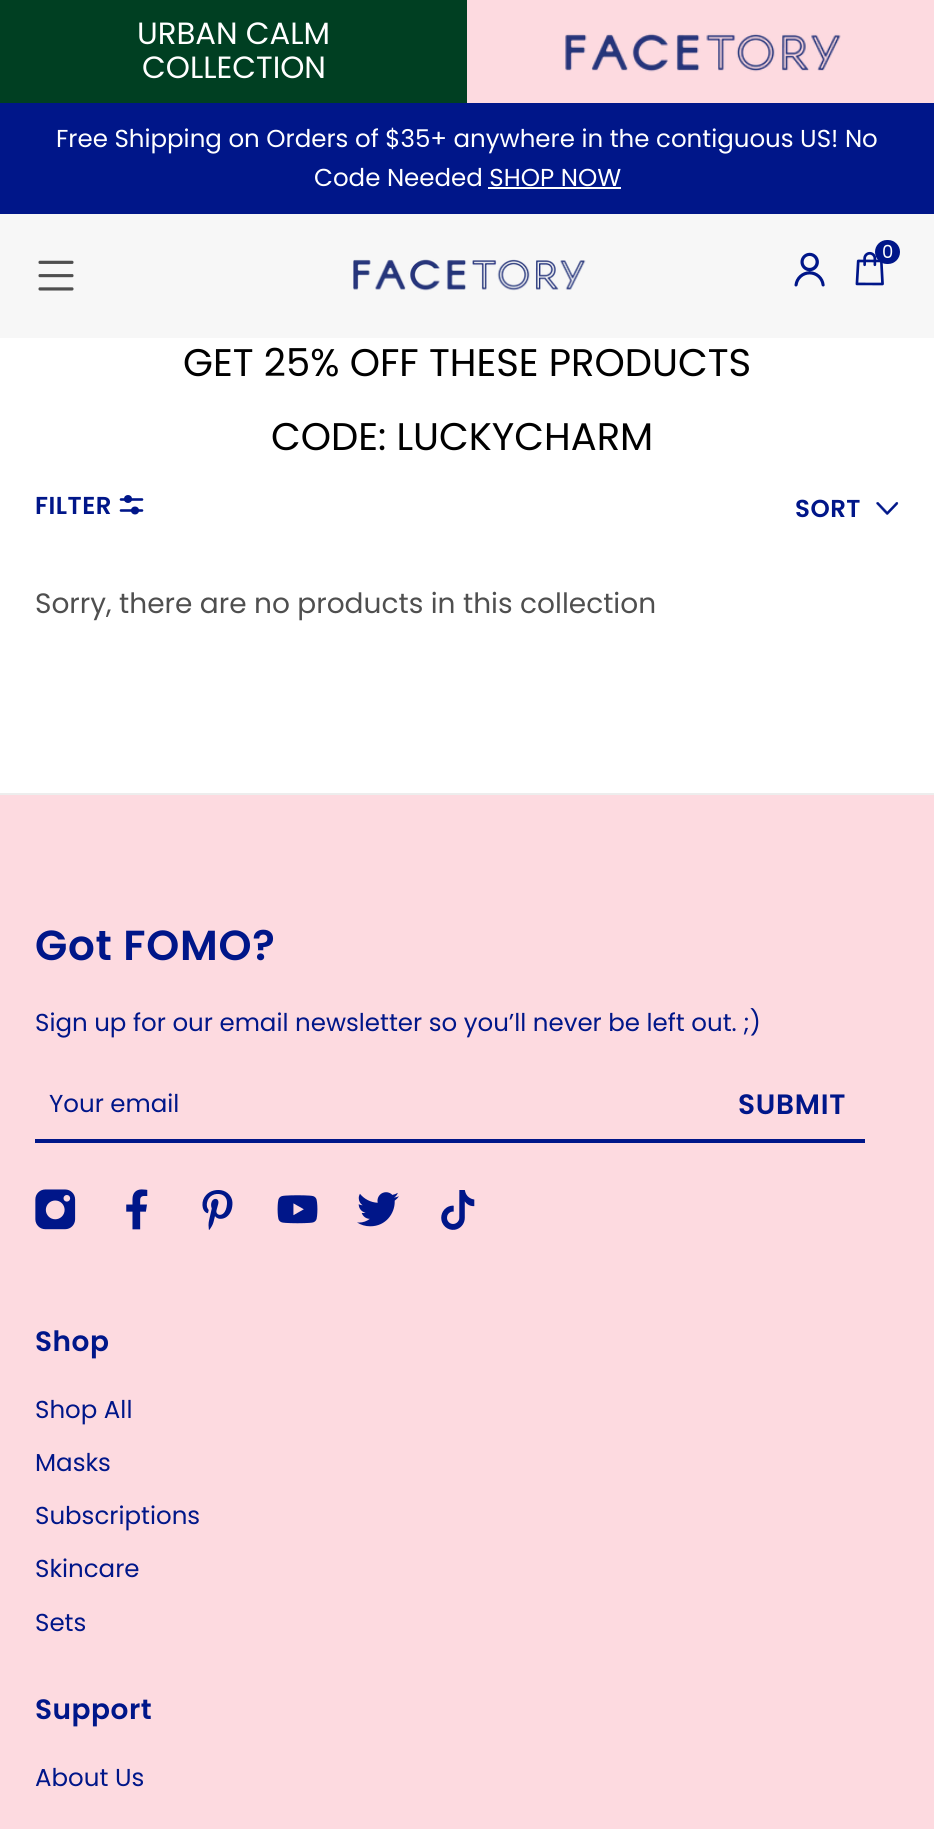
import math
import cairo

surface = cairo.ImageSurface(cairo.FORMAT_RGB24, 934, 1829)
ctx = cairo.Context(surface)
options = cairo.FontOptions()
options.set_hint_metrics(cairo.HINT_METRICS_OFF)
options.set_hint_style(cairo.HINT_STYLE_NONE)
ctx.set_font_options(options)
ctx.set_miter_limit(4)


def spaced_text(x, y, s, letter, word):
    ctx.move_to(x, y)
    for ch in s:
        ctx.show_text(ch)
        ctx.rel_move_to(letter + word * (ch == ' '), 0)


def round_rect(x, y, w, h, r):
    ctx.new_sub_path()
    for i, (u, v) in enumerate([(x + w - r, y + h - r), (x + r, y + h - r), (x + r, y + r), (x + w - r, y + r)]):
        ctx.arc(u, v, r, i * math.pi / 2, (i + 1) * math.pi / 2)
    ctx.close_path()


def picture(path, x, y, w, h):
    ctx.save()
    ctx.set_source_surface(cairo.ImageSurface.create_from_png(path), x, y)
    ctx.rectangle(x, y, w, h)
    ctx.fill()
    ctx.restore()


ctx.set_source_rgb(1, 1, 1)
ctx.paint()
ctx.set_source_rgb(0, 0.247, 0.133)
ctx.rectangle(0, 0, 467, 103)
ctx.fill()
ctx.select_font_face("Poppins")
ctx.set_font_size(30.75)
ctx.set_source_rgb(1, 1, 1)
ctx.move_to(137, 44)
ctx.show_text("URBAN CALM")
ctx.move_to(142, 78)
ctx.show_text("COLLECTION")
ctx.set_source_rgb(0.992, 0.855, 0.878)
ctx.rectangle(467, 0, 467, 103)
ctx.fill()
picture("img1.png", 565, 33, 276, 39)
ctx.set_source_rgb(0, 0.086, 0.537)
ctx.rectangle(0, 103, 934, 111)
ctx.fill()
ctx.set_font_size(24.5)
ctx.set_source_rgb(1, 1, 1)
ctx.move_to(56, 147)
ctx.show_text("Free Shipping on Orders of $35+ anywhere in the contiguous US! No")
ctx.move_to(314, 186)
ctx.show_text("Code Needed SHOP NOW")
ctx.rectangle(488, 187, 133, 2)
ctx.fill()
ctx.set_source_rgb(0.965, 0.965, 0.965)
ctx.rectangle(0, 214, 934, 124)
ctx.fill()
picture("img2.png", 794, 252, 31, 35)
picture("img3.png", 855, 251, 29, 35)
ctx.set_source_rgb(0, 0.086, 0.537)
round_rect(875, 240, 25, 24, 12)
ctx.fill()
ctx.set_font_size(18)
ctx.set_source_rgb(1, 1, 1)
ctx.move_to(882, 258)
ctx.show_text("0")
picture("img4.png", 38, 260, 36, 31)
picture("img5.png", 353, 259, 233, 32)
ctx.set_font_size(38.5)
ctx.set_source_rgb(0, 0, 0)
ctx.move_to(183, 376)
ctx.show_text("GET 25% OFF THESE PRODUCTS")
ctx.move_to(271, 450)
ctx.show_text("CODE: LUCKYCHARM")
ctx.set_source_rgb(0.929, 0.929, 0.929)
ctx.rectangle(0, 793, 934, 2)
ctx.fill()
ctx.select_font_face("Poppins SemiBold")
ctx.set_font_size(24.5)
ctx.set_source_rgb(0, 0.086, 0.537)
spaced_text(35, 514, "FILTER", 0.5, 0)
ctx.new_path()
ctx.move_to(121, 499.5)
ctx.line_to(142, 499.5)
ctx.set_line_width(2.6)
ctx.set_line_cap(cairo.LINE_CAP_ROUND)
ctx.stroke()
ctx.arc(128, 499, 4, 0, 2 * math.pi)
ctx.fill()
ctx.new_path()
ctx.move_to(121, 510.5)
ctx.line_to(142, 510.5)
ctx.stroke()
ctx.arc(135, 510.5, 4, 0, 2 * math.pi)
ctx.fill()
spaced_text(795, 517, "SORT", 0.5, 0)
picture("img6.png", 876, 502, 23, 13)
ctx.select_font_face("Poppins")
ctx.set_font_size(28)
ctx.set_source_rgb(0.31, 0.31, 0.31)
ctx.move_to(35, 613)
ctx.show_text("Sorry, there are no products in this collection")
ctx.set_source_rgb(0.992, 0.855, 0.878)
ctx.rectangle(0, 795, 934, 1034)
ctx.fill()
ctx.select_font_face("Poppins SemiBold")
ctx.set_font_size(42)
ctx.set_source_rgb(0, 0.086, 0.537)
spaced_text(35, 960, "Got FOMO?", 0.75, 0)
ctx.select_font_face("Poppins")
ctx.set_font_size(24.5)
ctx.move_to(35, 1031)
ctx.show_text("Sign up for our email newsletter so you’ll never be left out. ;)")
ctx.rectangle(35, 1139, 830, 4)
ctx.fill()
ctx.move_to(49, 1112)
ctx.show_text("Your email")
ctx.select_font_face("Poppins SemiBold")
ctx.set_font_size(28)
spaced_text(738, 1114, "SUBMIT", 0.75, 0)
picture("img7.png", 35, 1189, 41, 41)
picture("img8.png", 126, 1189, 22, 41)
picture("img9.png", 202, 1190, 31, 40)
picture("img10.png", 277, 1195, 41, 29)
picture("img11.png", 357, 1192, 42, 35)
picture("img12.png", 441, 1190, 34, 40)
spaced_text(35, 1351, "Shop", 0.5, 0)
ctx.select_font_face("Poppins")
ctx.set_font_size(24.5)
ctx.move_to(35, 1418)
ctx.show_text("Shop All")
ctx.move_to(35, 1471)
ctx.show_text("Masks")
ctx.move_to(35, 1524)
ctx.show_text("Subscriptions")
ctx.move_to(35, 1577)
ctx.show_text("Skincare")
ctx.move_to(35, 1631)
ctx.show_text("Sets")
ctx.select_font_face("Poppins SemiBold")
ctx.set_font_size(28)
spaced_text(35, 1719, "Support", 0.5, 0)
ctx.select_font_face("Poppins")
ctx.set_font_size(24.5)
ctx.move_to(35, 1786)
ctx.show_text("About Us")
surface.write_to_png("page.png")
